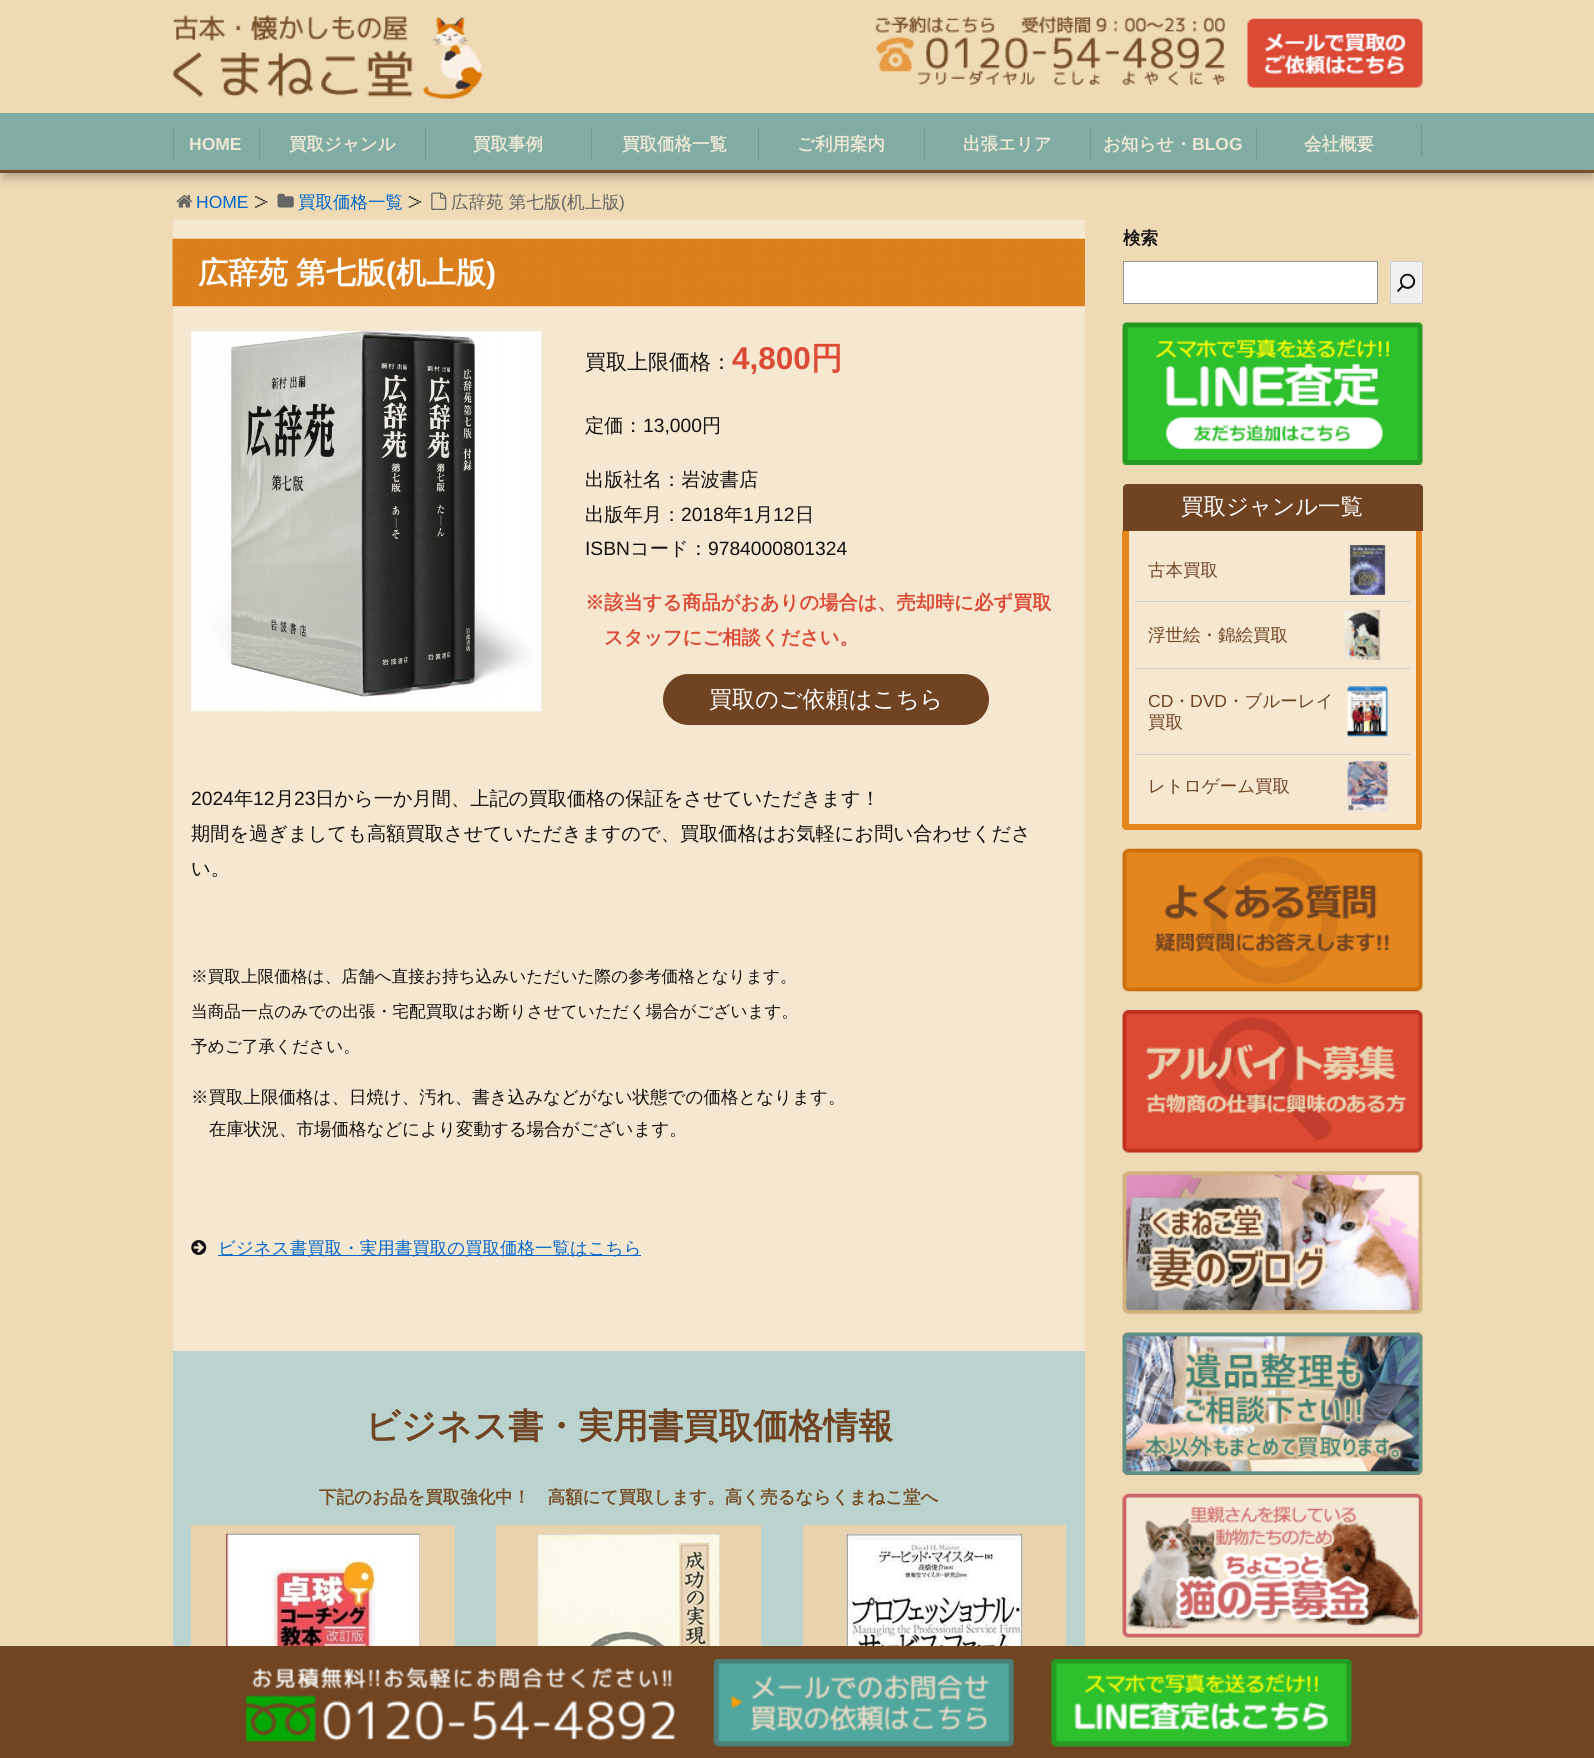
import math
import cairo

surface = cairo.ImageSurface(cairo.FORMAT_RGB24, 1594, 1758)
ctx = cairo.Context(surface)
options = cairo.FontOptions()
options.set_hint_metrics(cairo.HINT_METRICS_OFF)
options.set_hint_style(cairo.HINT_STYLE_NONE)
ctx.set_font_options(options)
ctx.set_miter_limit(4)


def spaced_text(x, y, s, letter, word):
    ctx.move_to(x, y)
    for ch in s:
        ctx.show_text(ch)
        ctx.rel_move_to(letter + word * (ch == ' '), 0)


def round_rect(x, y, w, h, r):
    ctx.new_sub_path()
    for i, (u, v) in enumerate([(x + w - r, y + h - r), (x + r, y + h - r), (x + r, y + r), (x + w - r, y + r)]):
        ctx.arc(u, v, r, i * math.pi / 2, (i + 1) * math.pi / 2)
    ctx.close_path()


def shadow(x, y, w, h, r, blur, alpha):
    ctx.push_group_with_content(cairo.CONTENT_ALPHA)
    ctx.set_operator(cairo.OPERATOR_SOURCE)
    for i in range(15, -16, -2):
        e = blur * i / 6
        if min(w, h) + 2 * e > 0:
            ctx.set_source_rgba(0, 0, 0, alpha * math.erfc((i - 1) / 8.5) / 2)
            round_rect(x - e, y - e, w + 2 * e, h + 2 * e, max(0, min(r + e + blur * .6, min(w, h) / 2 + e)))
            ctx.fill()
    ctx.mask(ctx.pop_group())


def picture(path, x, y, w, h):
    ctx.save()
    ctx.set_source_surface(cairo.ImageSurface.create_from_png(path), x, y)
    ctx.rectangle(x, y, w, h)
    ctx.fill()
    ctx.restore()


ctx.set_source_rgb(0.933, 0.859, 0.71)
ctx.paint()
picture("img1.png", 172, 14, 311, 85)
picture("img2.png", 875, 16, 350, 69)
picture("img3.png", 1247, 18, 176, 70)
picture("img8.png", 431, 192, 16, 18)
ctx.set_source_rgb(0, 0, 0)
shadow(3, 123, 1590, 55, 0, 4.5, 0.25)
ctx.set_source_rgb(0.506, 0.675, 0.639)
ctx.rectangle(0, 113, 1594, 57)
ctx.fill()
ctx.set_source_rgb(0.463, 0.31, 0.157)
ctx.rectangle(0, 170, 1594, 3)
ctx.fill()
ctx.set_source_rgb(0.424, 0.596, 0.561)
ctx.rectangle(173, 128, 1, 31)
ctx.fill()
ctx.select_font_face("Liberation Sans", cairo.FONT_SLANT_NORMAL, cairo.FONT_WEIGHT_BOLD)
ctx.set_font_size(17.5)
ctx.set_source_rgb(0.925, 0.902, 0.831)
ctx.move_to(189, 150)
ctx.show_text("HOME")
ctx.set_source_rgb(0.424, 0.596, 0.561)
ctx.rectangle(259, 128, 1, 31)
ctx.fill()
ctx.select_font_face("WenQuanYi Zen Hei", cairo.FONT_SLANT_NORMAL, cairo.FONT_WEIGHT_BOLD)
ctx.set_source_rgb(0.925, 0.902, 0.831)
ctx.move_to(289, 150)
ctx.show_text("買取ジャンル")
ctx.set_source_rgb(0.424, 0.596, 0.561)
ctx.rectangle(425, 128, 1, 31)
ctx.fill()
ctx.set_source_rgb(0.925, 0.902, 0.831)
ctx.move_to(473, 150)
ctx.show_text("買取事例")
ctx.set_source_rgb(0.424, 0.596, 0.561)
ctx.rectangle(591, 128, 1, 31)
ctx.fill()
ctx.set_source_rgb(0.925, 0.902, 0.831)
ctx.move_to(622, 150)
ctx.show_text("買取価格一覧")
ctx.set_source_rgb(0.424, 0.596, 0.561)
ctx.rectangle(758, 128, 1, 31)
ctx.fill()
ctx.set_source_rgb(0.925, 0.902, 0.831)
ctx.move_to(797, 150)
ctx.show_text("ご利用案内")
ctx.set_source_rgb(0.424, 0.596, 0.561)
ctx.rectangle(924, 128, 1, 31)
ctx.fill()
ctx.set_source_rgb(0.925, 0.902, 0.831)
ctx.move_to(963, 150)
ctx.show_text("出張エリア")
ctx.set_source_rgb(0.424, 0.596, 0.561)
ctx.rectangle(1090, 128, 1, 31)
ctx.fill()
ctx.set_source_rgb(0.925, 0.902, 0.831)
ctx.move_to(1103, 150)
ctx.show_text("お知らせ・")
ctx.select_font_face("Liberation Sans", cairo.FONT_SLANT_NORMAL, cairo.FONT_WEIGHT_BOLD)
ctx.move_to(1192, 150)
ctx.show_text("BLOG")
ctx.set_source_rgb(0.424, 0.596, 0.561)
ctx.rectangle(1256, 128, 1, 31)
ctx.fill()
ctx.select_font_face("WenQuanYi Zen Hei", cairo.FONT_SLANT_NORMAL, cairo.FONT_WEIGHT_BOLD)
ctx.set_source_rgb(0.925, 0.902, 0.831)
ctx.move_to(1304, 150)
ctx.show_text("会社概要")
ctx.set_source_rgb(0.424, 0.596, 0.561)
ctx.rectangle(1421, 125, 1, 31)
ctx.fill()
picture("img4.png", 176, 195, 17, 13)
ctx.select_font_face("Liberation Sans")
ctx.set_source_rgb(0, 0.4, 0.8)
ctx.move_to(196, 208)
ctx.show_text("HOME")
picture("img5.png", 255, 196, 13, 12)
picture("img6.png", 277, 193, 17, 15)
ctx.select_font_face("WenQuanYi Zen Hei Medium")
ctx.move_to(298, 208)
ctx.show_text("買取価格一覧")
picture("img7.png", 408, 196, 14, 12)
ctx.set_source_rgb(0.4, 0.4, 0.4)
ctx.move_to(451, 208)
ctx.show_text("広辞苑 第七版")
ctx.select_font_face("Liberation Sans")
ctx.move_to(561, 208)
ctx.show_text("(")
ctx.select_font_face("WenQuanYi Zen Hei Medium")
ctx.move_to(567, 208)
ctx.show_text("机上版")
ctx.select_font_face("Liberation Sans")
ctx.move_to(619, 208)
ctx.show_text(")")
ctx.set_source_rgb(0.961, 0.906, 0.816)
ctx.rectangle(173, 220, 912, 1131)
ctx.fill()
picture("img9.png", 172, 238, 913, 69)
ctx.select_font_face("WenQuanYi Zen Hei", cairo.FONT_SLANT_NORMAL, cairo.FONT_WEIGHT_BOLD)
ctx.set_font_size(30)
ctx.set_source_rgb(1, 1, 1)
spaced_text(198, 283, "広辞苑 第七版", 0, -1)
ctx.select_font_face("Liberation Sans", cairo.FONT_SLANT_NORMAL, cairo.FONT_WEIGHT_BOLD)
ctx.move_to(386, 283)
ctx.show_text("(")
ctx.select_font_face("WenQuanYi Zen Hei", cairo.FONT_SLANT_NORMAL, cairo.FONT_WEIGHT_BOLD)
ctx.move_to(396, 283)
ctx.show_text("机上版")
ctx.select_font_face("Liberation Sans", cairo.FONT_SLANT_NORMAL, cairo.FONT_WEIGHT_BOLD)
ctx.move_to(486, 283)
ctx.show_text(")")
picture("img10.png", 191, 331, 351, 381)
ctx.select_font_face("WenQuanYi Zen Hei Medium")
ctx.set_font_size(21)
ctx.set_source_rgb(0.067, 0.067, 0.067)
ctx.move_to(585, 369)
ctx.show_text("買取上限価格：")
ctx.select_font_face("Liberation Sans", cairo.FONT_SLANT_NORMAL, cairo.FONT_WEIGHT_BOLD)
ctx.set_font_size(31.5)
ctx.set_source_rgb(0.863, 0.286, 0.208)
ctx.move_to(732, 369)
ctx.show_text("4,800")
ctx.select_font_face("WenQuanYi Zen Hei", cairo.FONT_SLANT_NORMAL, cairo.FONT_WEIGHT_BOLD)
ctx.move_to(811, 369)
ctx.show_text("円")
ctx.select_font_face("WenQuanYi Zen Hei Medium")
ctx.set_font_size(19.25)
ctx.set_source_rgb(0.067, 0.067, 0.067)
ctx.move_to(585, 432)
ctx.show_text("定価：")
ctx.select_font_face("Liberation Sans")
ctx.move_to(643, 432)
ctx.show_text("13,000")
ctx.select_font_face("WenQuanYi Zen Hei Medium")
ctx.move_to(702, 432)
ctx.show_text("円")
ctx.move_to(585, 486)
ctx.show_text("出版社名：岩波書店")
ctx.move_to(585, 521)
ctx.show_text("出版年月：")
ctx.select_font_face("Liberation Sans")
ctx.move_to(681, 521)
ctx.show_text("2018")
ctx.select_font_face("WenQuanYi Zen Hei Medium")
ctx.move_to(724, 521)
ctx.show_text("年")
ctx.select_font_face("Liberation Sans")
ctx.move_to(743, 521)
ctx.show_text("1")
ctx.select_font_face("WenQuanYi Zen Hei Medium")
ctx.move_to(754, 521)
ctx.show_text("月")
ctx.select_font_face("Liberation Sans")
ctx.move_to(773, 521)
ctx.show_text("12")
ctx.select_font_face("WenQuanYi Zen Hei Medium")
ctx.move_to(795, 521)
ctx.show_text("日")
ctx.select_font_face("Liberation Sans")
ctx.move_to(585, 555)
ctx.show_text("ISBN")
ctx.select_font_face("WenQuanYi Zen Hei Medium")
ctx.move_to(630, 555)
ctx.show_text("コード：")
ctx.select_font_face("Liberation Sans")
ctx.move_to(708, 555)
ctx.show_text("9784000801324")
ctx.select_font_face("WenQuanYi Zen Hei", cairo.FONT_SLANT_NORMAL, cairo.FONT_WEIGHT_BOLD)
ctx.set_source_rgb(0.863, 0.286, 0.208)
ctx.move_to(585, 609)
ctx.show_text("※該当する商品がおありの場合は、売却時に必ず買取")
ctx.move_to(604, 644)
ctx.show_text("スタッフにご相談ください。")
ctx.set_source_rgb(0.439, 0.263, 0.133)
round_rect(663, 674, 326, 51, 25.5)
ctx.fill()
ctx.select_font_face("WenQuanYi Zen Hei Medium")
ctx.set_font_size(23.1)
ctx.set_source_rgb(1, 1, 1)
ctx.move_to(709, 707)
ctx.show_text("買取のご依頼はこちら")
ctx.select_font_face("Liberation Sans")
ctx.set_font_size(19.25)
ctx.set_source_rgb(0.067, 0.067, 0.067)
ctx.move_to(191, 805)
ctx.show_text("2024")
ctx.select_font_face("WenQuanYi Zen Hei Medium")
ctx.move_to(234, 805)
ctx.show_text("年")
ctx.select_font_face("Liberation Sans")
ctx.move_to(253, 805)
ctx.show_text("12")
ctx.select_font_face("WenQuanYi Zen Hei Medium")
ctx.move_to(275, 805)
ctx.show_text("月")
ctx.select_font_face("Liberation Sans")
ctx.move_to(294, 805)
ctx.show_text("23")
ctx.select_font_face("WenQuanYi Zen Hei Medium")
ctx.move_to(315, 805)
ctx.show_text("日から一か月間、上記の買取価格の保証をさせていただきます！")
ctx.move_to(191, 840)
ctx.show_text("期間を過ぎましても高額買取させていただきますので、買取価格はお気軽にお問い合わせくださ")
ctx.move_to(191, 875)
ctx.show_text("い。")
ctx.set_font_size(16.65)
ctx.move_to(191, 982)
ctx.show_text("※買取上限価格は、店舗へ直接お持ち込みいただいた際の参考価格となります。")
ctx.move_to(191, 1017)
ctx.show_text("当商品一点のみでの出張・宅配買取はお断りさせていただく場合がございます。")
ctx.move_to(191, 1052)
ctx.show_text("予めご了承ください。")
ctx.set_font_size(17.5)
ctx.move_to(191, 1103)
ctx.show_text("※買取上限価格は、日焼け、汚れ、書き込みなどがない状態での価格となります。")
ctx.move_to(209, 1135)
ctx.show_text("在庫状況、市場価格などにより変動する場合がございます。")
picture("img11.png", 191, 1240, 16, 15)
ctx.set_source_rgb(0, 0.4, 0.8)
ctx.rectangle(218, 1255, 423, 1)
ctx.fill()
ctx.move_to(218, 1254)
ctx.show_text("ビジネス書買取・実用書買取の買取価格一覧はこちら")
ctx.set_source_rgb(0.729, 0.827, 0.808)
ctx.rectangle(173, 1351, 912, 295)
ctx.fill()
ctx.select_font_face("WenQuanYi Zen Hei", cairo.FONT_SLANT_NORMAL, cairo.FONT_WEIGHT_BOLD)
ctx.set_font_size(35)
ctx.set_source_rgb(0.439, 0.263, 0.133)
ctx.move_to(365, 1438)
ctx.show_text("ビジネス書・実用書買取価格情報")
ctx.set_font_size(17.5)
ctx.set_source_rgb(0.463, 0.31, 0.157)
ctx.move_to(319, 1503)
ctx.show_text("下記のお品を買取強化中！　高額にて買取します。高く売るならくまねこ堂へ")
ctx.set_source_rgb(0.914, 0.827, 0.682)
ctx.rectangle(191, 1525, 264, 121)
ctx.fill()
picture("img12.png", 226, 1533, 194, 113)
ctx.rectangle(496, 1525, 265, 121)
ctx.fill()
picture("img13.png", 537, 1533, 183, 113)
ctx.rectangle(803, 1525, 263, 121)
ctx.fill()
picture("img14.png", 846, 1533, 177, 113)
ctx.set_source_rgb(0.067, 0.067, 0.067)
ctx.move_to(1123, 244)
ctx.show_text("検索")
ctx.set_source_rgb(1, 1, 1)
ctx.rectangle(1123.5, 261.5, 254, 42)
ctx.fill_preserve()
ctx.set_source_rgb(0.58, 0.58, 0.58)
ctx.set_line_width(1)
ctx.stroke()
ctx.set_source_rgb(0.937, 0.937, 0.937)
ctx.rectangle(1390.5, 261.5, 32, 42)
ctx.fill_preserve()
ctx.set_source_rgb(0.8, 0.8, 0.8)
ctx.stroke()
picture("img15.png", 1397, 273, 19, 19)
picture("img16.png", 1122, 322, 301, 143)
ctx.set_source_rgb(0.439, 0.263, 0.133)
ctx.new_path()
ctx.move_to(1127, 484)
ctx.line_to(1419, 484)
ctx.curve_to(1421, 484, 1423, 486, 1423, 488)
ctx.line_to(1423, 531)
ctx.line_to(1123, 531)
ctx.line_to(1123, 488)
ctx.curve_to(1123, 486, 1125, 484, 1127, 484)
ctx.close_path()
ctx.fill()
ctx.select_font_face("WenQuanYi Zen Hei Medium")
ctx.set_font_size(22.5)
ctx.set_source_rgb(1, 1, 1)
ctx.move_to(1181, 514)
ctx.show_text("買取ジャンル一覧")
ctx.set_source_rgb(0.961, 0.906, 0.816)
ctx.new_path()
ctx.move_to(1123, 531)
ctx.line_to(1423, 531)
ctx.line_to(1423, 826)
ctx.curve_to(1423, 828, 1421, 830, 1419, 830)
ctx.line_to(1127, 830)
ctx.curve_to(1125, 830, 1123, 828, 1123, 826)
ctx.close_path()
ctx.fill()
ctx.set_source_rgb(0.898, 0.522, 0.118)
ctx.set_fill_rule(cairo.FILL_RULE_EVEN_ODD)
ctx.new_path()
ctx.move_to(1122, 531)
ctx.line_to(1422, 531)
ctx.line_to(1422, 826)
ctx.curve_to(1422, 828, 1421, 830, 1419, 830)
ctx.line_to(1126, 830)
ctx.curve_to(1124, 830, 1122, 828, 1122, 826)
ctx.close_path()
ctx.move_to(1129, 531)
ctx.line_to(1416, 531)
ctx.line_to(1416, 824)
ctx.line_to(1129, 824)
ctx.close_path()
ctx.fill()
ctx.set_source_rgb(0.8, 0.8, 0.8)
ctx.rectangle(1135, 601, 275, 1)
ctx.fill()
picture("img17.png", 1349, 545, 37, 50)
ctx.set_font_size(17.5)
ctx.set_source_rgb(0.439, 0.263, 0.133)
ctx.move_to(1148, 576)
ctx.show_text("古本買取")
ctx.set_source_rgb(0.8, 0.8, 0.8)
ctx.rectangle(1135, 668, 275, 1)
ctx.fill()
picture("img18.png", 1343, 610, 38, 50)
ctx.set_source_rgb(0.439, 0.263, 0.133)
ctx.move_to(1148, 641)
ctx.show_text("浮世絵・錦絵買取")
ctx.set_source_rgb(0.8, 0.8, 0.8)
ctx.rectangle(1135, 754, 275, 1)
ctx.fill()
picture("img19.png", 1347, 686, 41, 51)
ctx.select_font_face("Liberation Sans")
ctx.set_source_rgb(0.439, 0.263, 0.133)
ctx.move_to(1148, 707)
ctx.show_text("CD")
ctx.select_font_face("WenQuanYi Zen Hei Medium")
ctx.move_to(1173, 707)
ctx.show_text("・")
ctx.select_font_face("Liberation Sans")
ctx.move_to(1190, 707)
ctx.show_text("DVD")
ctx.select_font_face("WenQuanYi Zen Hei Medium")
ctx.move_to(1227, 707)
ctx.show_text("・ブルーレイ")
ctx.move_to(1148, 728)
ctx.show_text("買取")
picture("img20.png", 1347, 761, 41, 51)
ctx.move_to(1148, 792)
ctx.show_text("レトロゲーム買取")
picture("img21.png", 1122, 848, 301, 144)
picture("img22.png", 1122, 1010, 301, 143)
picture("img23.png", 1122, 1171, 301, 143)
picture("img24.png", 1122, 1332, 301, 143)
picture("img25.png", 1122, 1493, 301, 145)
ctx.set_source_rgb(0.443, 0.271, 0.133)
ctx.rectangle(0, 1646, 1594, 112)
ctx.fill()
picture("img26.png", 245, 1666, 431, 76)
picture("img27.png", 713, 1659, 301, 88)
picture("img28.png", 1050, 1659, 302, 88)
surface.write_to_png("page.png")
